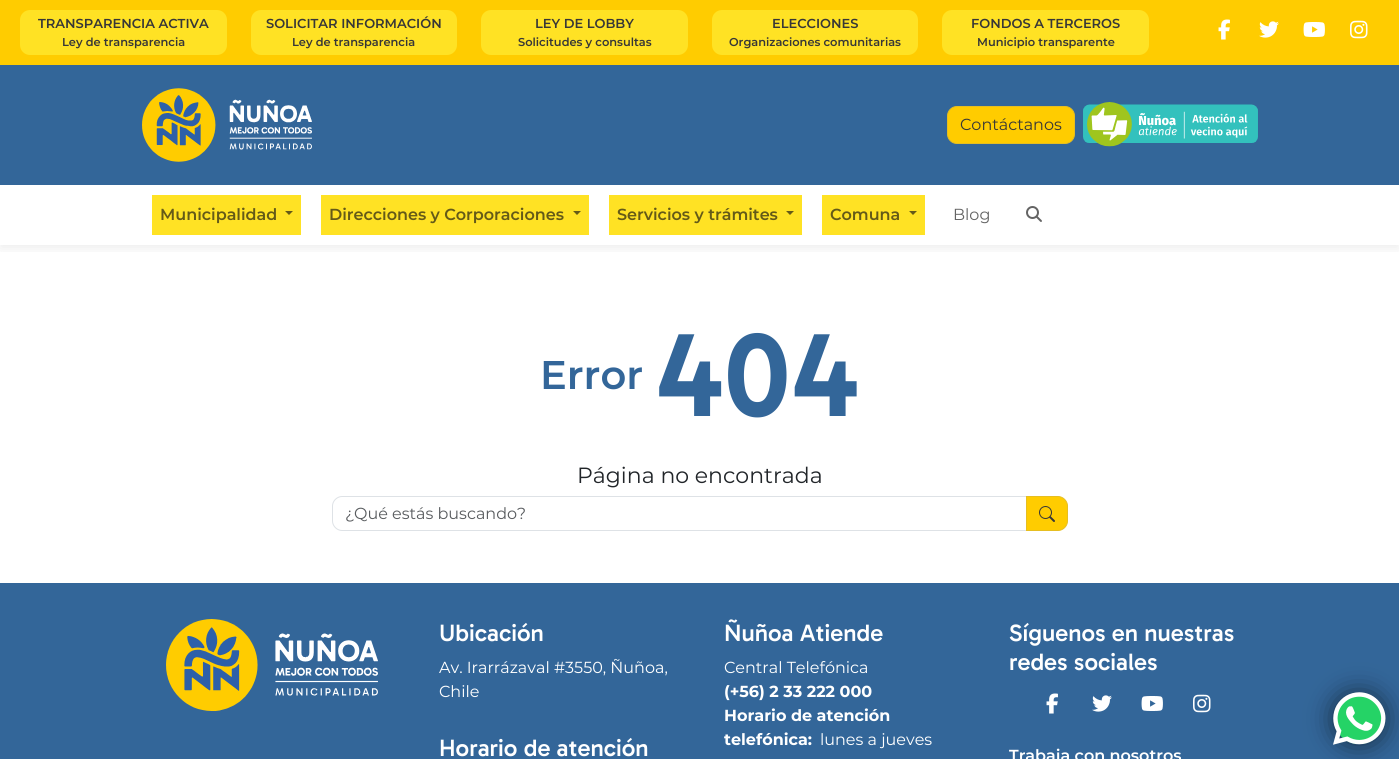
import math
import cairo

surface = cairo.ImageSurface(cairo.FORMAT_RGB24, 1399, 759)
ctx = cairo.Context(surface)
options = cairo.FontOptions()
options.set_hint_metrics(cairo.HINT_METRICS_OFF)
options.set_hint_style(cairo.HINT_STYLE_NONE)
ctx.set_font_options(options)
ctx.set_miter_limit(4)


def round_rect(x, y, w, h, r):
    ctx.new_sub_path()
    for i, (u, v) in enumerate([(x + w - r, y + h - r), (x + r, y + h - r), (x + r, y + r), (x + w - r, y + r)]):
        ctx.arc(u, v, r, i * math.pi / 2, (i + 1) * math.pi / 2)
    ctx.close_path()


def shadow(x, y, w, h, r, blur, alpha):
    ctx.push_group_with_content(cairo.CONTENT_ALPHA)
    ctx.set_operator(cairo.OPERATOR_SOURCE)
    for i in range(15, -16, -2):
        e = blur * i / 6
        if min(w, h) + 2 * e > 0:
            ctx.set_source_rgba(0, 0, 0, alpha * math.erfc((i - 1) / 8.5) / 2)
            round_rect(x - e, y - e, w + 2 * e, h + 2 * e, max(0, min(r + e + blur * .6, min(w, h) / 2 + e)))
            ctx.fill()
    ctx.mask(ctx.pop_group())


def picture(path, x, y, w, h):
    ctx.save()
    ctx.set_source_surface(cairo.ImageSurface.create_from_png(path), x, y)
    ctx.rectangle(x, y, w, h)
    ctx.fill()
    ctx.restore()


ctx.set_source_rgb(1, 1, 1)
ctx.paint()
ctx.set_source_rgb(1, 0.8, 0)
ctx.rectangle(0, 0, 1399, 65)
ctx.fill()
ctx.set_source_rgb(1, 0.886, 0.141)
round_rect(20, 10, 207, 45, 10)
ctx.fill()
ctx.select_font_face("Montserrat SemiBold")
ctx.set_font_size(13)
ctx.set_source_rgb(0.216, 0.216, 0.216)
ctx.move_to(38, 28)
ctx.show_text("TRANSPARENCIA ACTIVA")
ctx.set_font_size(11.4)
ctx.move_to(62, 46)
ctx.show_text("Ley de transparencia")
ctx.set_source_rgb(1, 0.886, 0.141)
round_rect(251, 10, 206, 45, 10)
ctx.fill()
ctx.set_font_size(13)
ctx.set_source_rgb(0.216, 0.216, 0.216)
ctx.move_to(266, 28)
ctx.show_text("SOLICITAR INFORMACIÓN")
ctx.set_font_size(11.4)
ctx.move_to(292, 46)
ctx.show_text("Ley de transparencia")
ctx.set_source_rgb(1, 0.886, 0.141)
round_rect(481, 10, 207, 45, 10)
ctx.fill()
ctx.set_font_size(13)
ctx.set_source_rgb(0.216, 0.216, 0.216)
ctx.move_to(535, 28)
ctx.show_text("LEY DE LOBBY")
ctx.set_font_size(11.4)
ctx.move_to(518, 46)
ctx.show_text("Solicitudes y consultas")
ctx.set_source_rgb(1, 0.886, 0.141)
round_rect(712, 10, 206, 45, 10)
ctx.fill()
ctx.set_font_size(13)
ctx.set_source_rgb(0.216, 0.216, 0.216)
ctx.move_to(772, 28)
ctx.show_text("ELECCIONES")
ctx.set_font_size(11.4)
ctx.move_to(729, 46)
ctx.show_text("Organizaciones comunitarias")
ctx.set_source_rgb(1, 0.886, 0.141)
round_rect(942, 10, 207, 45, 10)
ctx.fill()
ctx.set_font_size(13)
ctx.set_source_rgb(0.216, 0.216, 0.216)
ctx.move_to(971, 28)
ctx.show_text("FONDOS A TERCEROS")
ctx.set_font_size(11.4)
ctx.move_to(977, 46)
ctx.show_text("Municipio transparente")
picture("img1.png", 1218, 19, 12, 21)
picture("img2.png", 1259, 21, 20, 17)
picture("img3.png", 1303, 22, 22, 15)
picture("img4.png", 1350, 20, 18, 19)
ctx.set_source_rgb(0.2, 0.4, 0.6)
ctx.rectangle(0, 65, 1399, 120)
ctx.fill()
picture("img5.png", 142, 88, 170, 74)
ctx.set_source_rgb(1, 0.8, 0)
round_rect(947.5, 106.5, 127, 37, 9.5)
ctx.fill_preserve()
ctx.set_source_rgb(0.902, 0.745, 0.129)
ctx.set_line_width(1)
ctx.stroke()
ctx.select_font_face("Montserrat")
ctx.set_font_size(16)
ctx.set_source_rgb(0.216, 0.216, 0.216)
ctx.move_to(960, 130)
ctx.show_text("Contáctanos")
picture("img6.png", 1083, 102, 175, 45)
ctx.save()
ctx.rectangle(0, 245, 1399, 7)
ctx.clip()
ctx.set_source_rgb(0, 0, 0)
shadow(0, 189, 1399, 60, 0, 6, 0.07)
ctx.restore()
ctx.set_source_rgb(1, 0.886, 0.141)
ctx.rectangle(152, 195, 149, 40)
ctx.fill()
ctx.select_font_face("Montserrat SemiBold")
ctx.set_source_rgb(0.392, 0.353, 0.094)
ctx.move_to(160, 220)
ctx.show_text("Municipalidad")
ctx.new_path()
ctx.move_to(285, 211)
ctx.line_to(293, 211)
ctx.line_to(289, 215)
ctx.close_path()
ctx.fill()
ctx.set_source_rgb(1, 0.886, 0.141)
ctx.rectangle(321, 195, 268, 40)
ctx.fill()
ctx.set_source_rgb(0.392, 0.353, 0.094)
ctx.move_to(329, 220)
ctx.show_text("Direcciones y Corporaciones")
ctx.new_path()
ctx.move_to(573, 211)
ctx.line_to(581, 211)
ctx.line_to(577, 215)
ctx.close_path()
ctx.fill()
ctx.set_source_rgb(1, 0.886, 0.141)
ctx.rectangle(609, 195, 193, 40)
ctx.fill()
ctx.set_source_rgb(0.392, 0.353, 0.094)
ctx.move_to(617, 220)
ctx.show_text("Servicios y trámites")
ctx.new_path()
ctx.move_to(786, 211)
ctx.line_to(794, 211)
ctx.line_to(790, 215)
ctx.close_path()
ctx.fill()
ctx.set_source_rgb(1, 0.886, 0.141)
ctx.rectangle(822, 195, 103, 40)
ctx.fill()
ctx.set_source_rgb(0.392, 0.353, 0.094)
ctx.move_to(830, 220)
ctx.show_text("Comuna")
ctx.new_path()
ctx.move_to(909, 211)
ctx.line_to(917, 211)
ctx.line_to(913, 215)
ctx.close_path()
ctx.fill()
ctx.select_font_face("Montserrat")
ctx.set_source_rgb(0.392, 0.392, 0.392)
ctx.move_to(953, 220)
ctx.show_text("Blog")
picture("img7.png", 1026, 206, 16, 16)
ctx.select_font_face("Montserrat SemiBold")
ctx.set_font_size(40)
ctx.set_source_rgb(0.2, 0.4, 0.6)
ctx.move_to(540, 389)
ctx.show_text("Error")
ctx.select_font_face("Gabarito SemiBold")
ctx.set_font_size(120)
ctx.move_to(655, 416)
ctx.show_text("404")
ctx.select_font_face("Montserrat")
ctx.set_font_size(22)
ctx.set_source_rgb(0.129, 0.145, 0.161)
ctx.move_to(577, 483)
ctx.show_text("Página no encontrada")
ctx.new_path()
ctx.move_to(342, 496.5)
ctx.line_to(1026.5, 496.5)
ctx.line_to(1026.5, 530.5)
ctx.line_to(342, 530.5)
ctx.curve_to(337, 530.5, 332.5, 526, 332.5, 521)
ctx.line_to(332.5, 506)
ctx.curve_to(332.5, 501, 337, 496.5, 342, 496.5)
ctx.close_path()
ctx.set_source_rgb(0.871, 0.886, 0.902)
ctx.stroke()
ctx.set_font_size(16)
ctx.set_source_rgb(0.349, 0.361, 0.373)
ctx.move_to(345, 519)
ctx.show_text("¿Qué estás buscando?")
ctx.set_source_rgb(1, 0.8, 0)
ctx.new_path()
ctx.move_to(1026.5, 496.5)
ctx.line_to(1058, 496.5)
ctx.curve_to(1063, 496.5, 1067.5, 501, 1067.5, 506)
ctx.line_to(1067.5, 521)
ctx.curve_to(1067.5, 526, 1063, 530.5, 1058, 530.5)
ctx.line_to(1026.5, 530.5)
ctx.close_path()
ctx.fill_preserve()
ctx.set_source_rgb(0.902, 0.745, 0.129)
ctx.stroke()
picture("img8.png", 1039, 506, 16, 16)
ctx.set_source_rgb(0.2, 0.4, 0.6)
ctx.rectangle(0, 583, 1399, 176)
ctx.fill()
picture("img9.png", 166, 619, 212, 92)
ctx.select_font_face("Gabarito Medium")
ctx.set_font_size(24)
ctx.set_source_rgb(1, 1, 1)
ctx.move_to(439, 641)
ctx.show_text("Ubicación")
ctx.select_font_face("Montserrat")
ctx.set_font_size(16)
ctx.move_to(439, 673)
ctx.show_text("Av. Irarrázaval #3550, Ñuñoa,")
ctx.move_to(439, 697)
ctx.show_text("Chile")
ctx.select_font_face("Gabarito Medium")
ctx.set_font_size(24)
ctx.move_to(439, 756)
ctx.show_text("Horario de atención")
ctx.move_to(724, 641)
ctx.show_text("Ñuñoa Atiende")
ctx.select_font_face("Montserrat")
ctx.set_font_size(16)
ctx.move_to(724, 673)
ctx.show_text("Central Telefónica")
ctx.select_font_face("Montserrat", cairo.FONT_SLANT_NORMAL, cairo.FONT_WEIGHT_BOLD)
ctx.move_to(724, 697)
ctx.show_text("(+56) 2 33 222 000")
ctx.move_to(724, 721)
ctx.show_text("Horario de atención")
ctx.move_to(724, 745)
ctx.show_text("telefónica:")
ctx.select_font_face("Montserrat")
ctx.move_to(820, 745)
ctx.show_text("lunes a jueves")
ctx.select_font_face("Gabarito Medium")
ctx.set_font_size(24)
ctx.move_to(1009, 641)
ctx.show_text("Síguenos en nuestras")
ctx.move_to(1009, 670)
ctx.show_text("redes sociales")
picture("img10.png", 1046, 693, 12, 21)
picture("img11.png", 1092, 695, 20, 17)
picture("img12.png", 1141, 696, 22, 15)
picture("img13.png", 1193, 694, 18, 19)
ctx.select_font_face("Montserrat SemiBold")
ctx.set_font_size(16)
ctx.move_to(1009, 761)
ctx.show_text("Trabaja con nosotros")
ctx.set_source_rgb(0, 0, 0)
shadow(1334, 694, 50, 50, 25, 13, 0.6)
ctx.set_source_rgb(0.145, 0.827, 0.4)
ctx.arc(1359, 719, 25, 0, 2 * math.pi)
ctx.fill()
picture("img14.png", 1333, 692, 53, 53)
surface.write_to_png("page.png")
